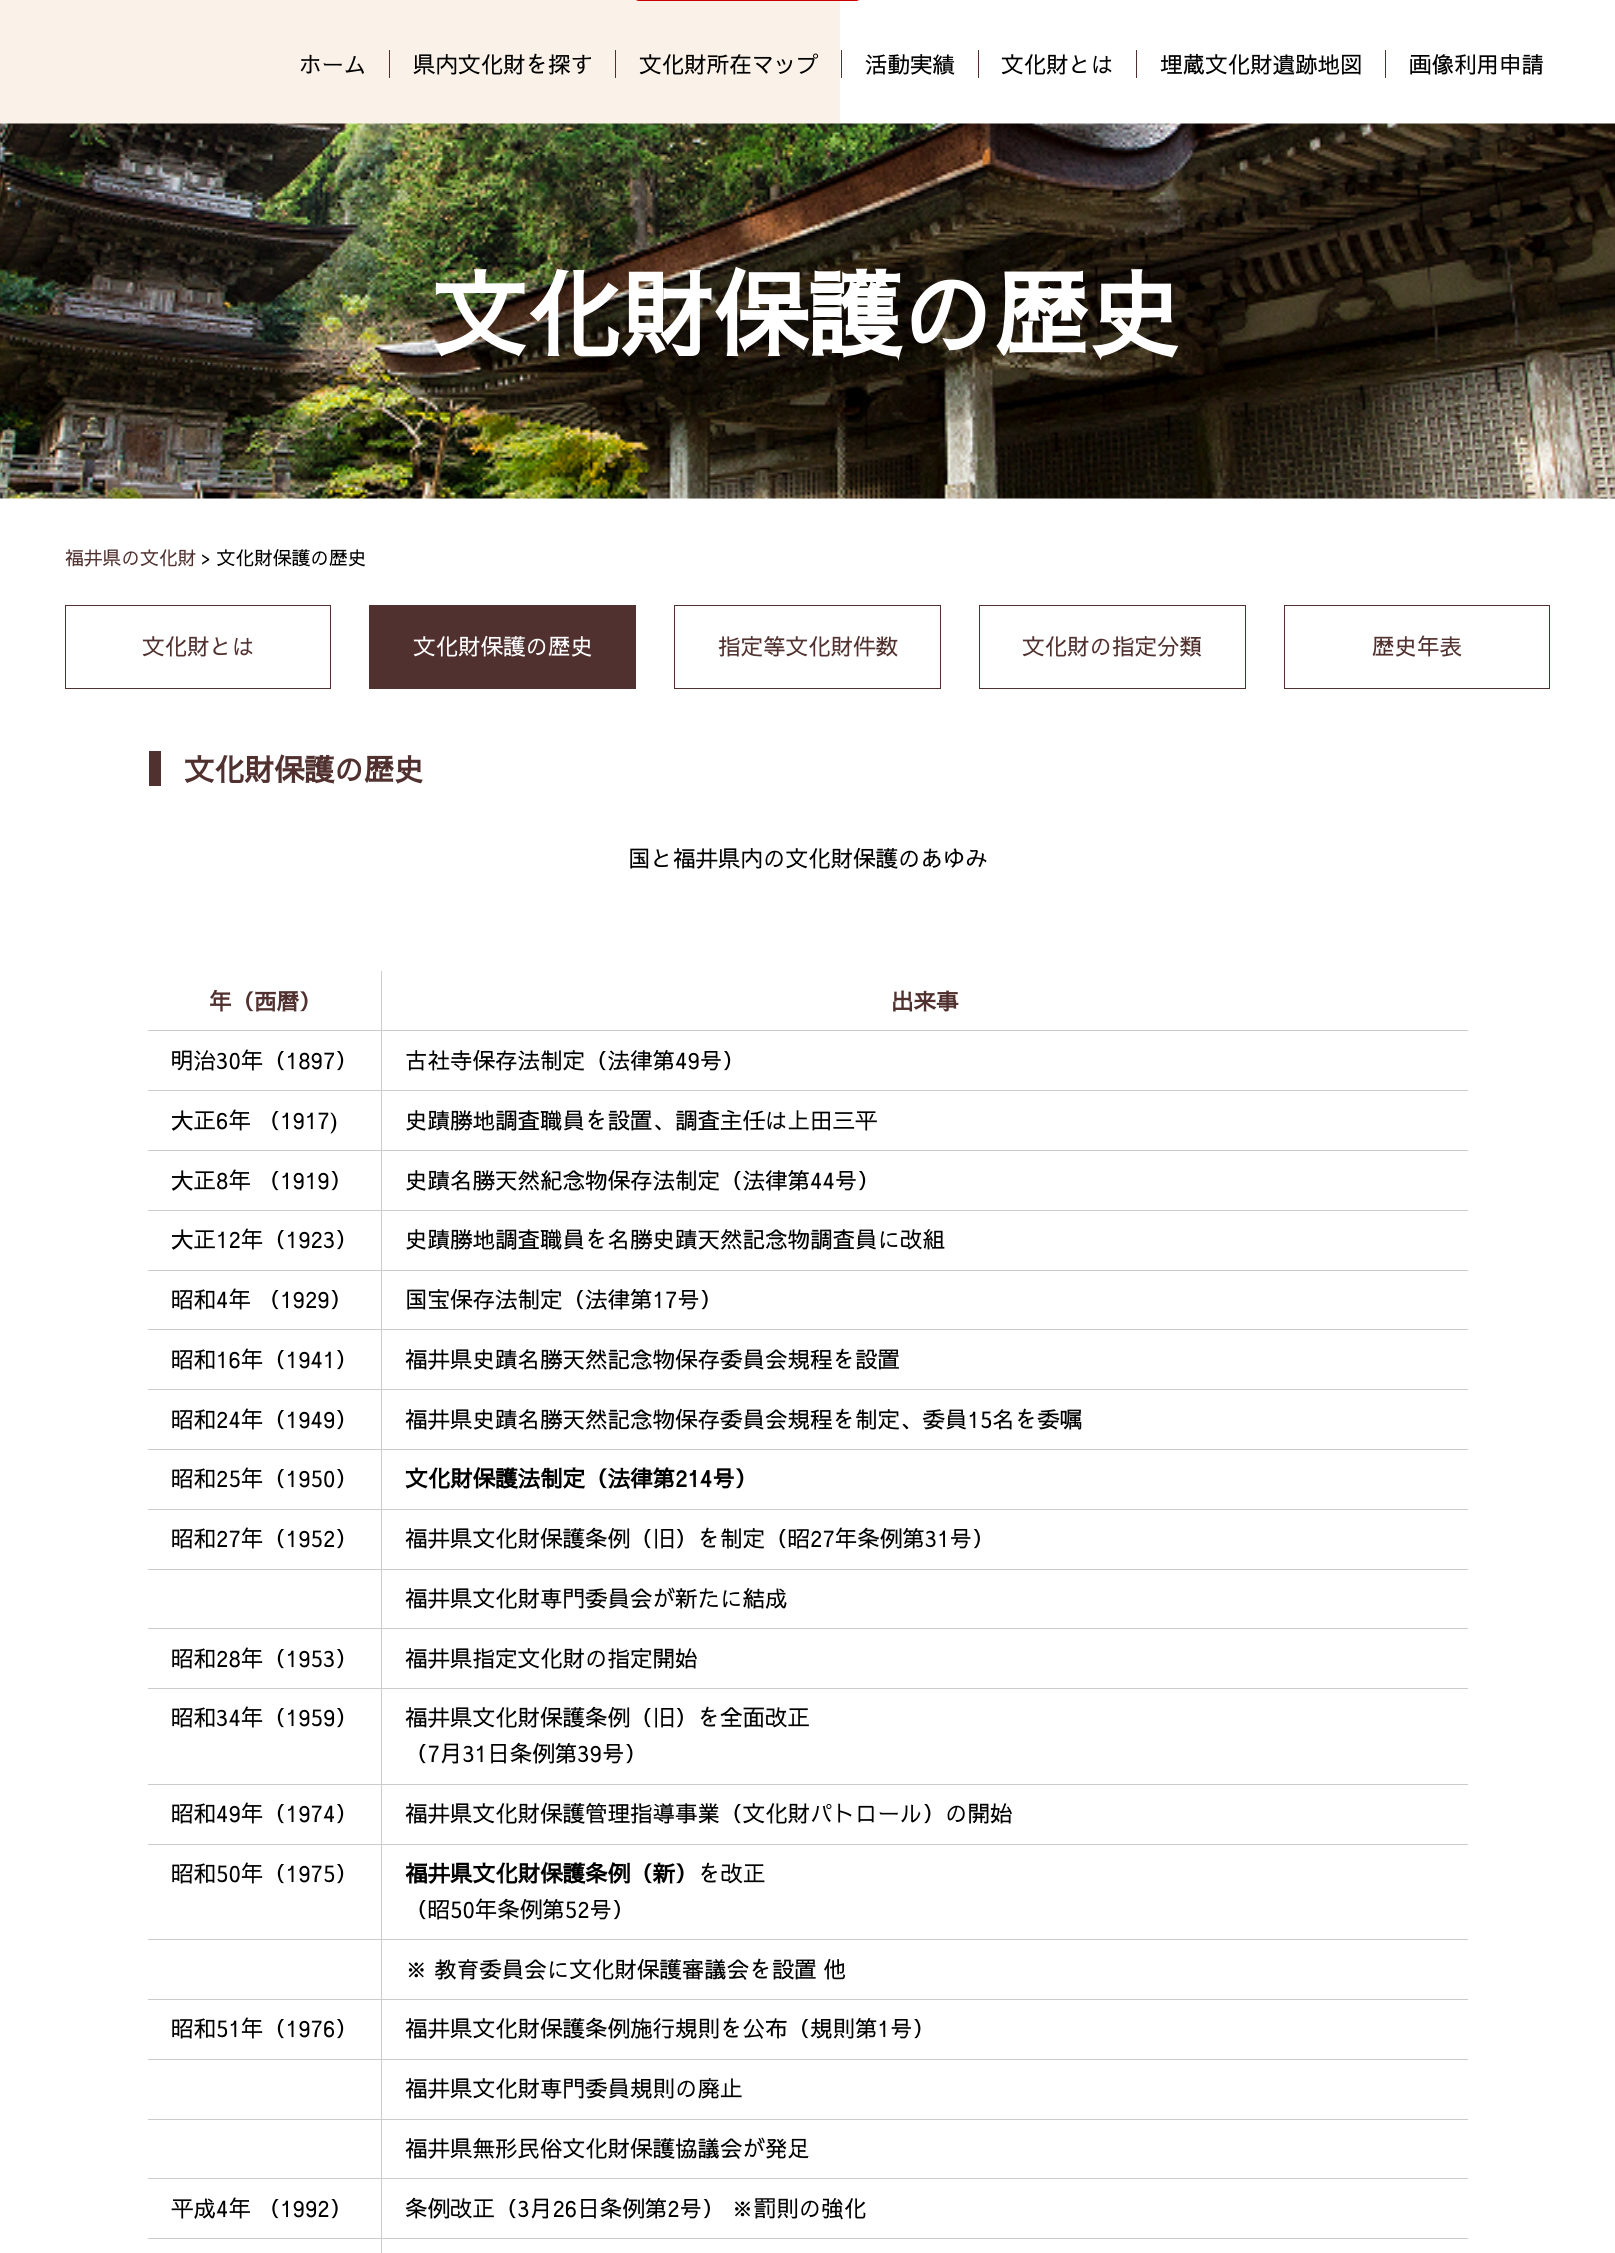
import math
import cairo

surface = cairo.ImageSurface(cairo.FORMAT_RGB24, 1615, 2253)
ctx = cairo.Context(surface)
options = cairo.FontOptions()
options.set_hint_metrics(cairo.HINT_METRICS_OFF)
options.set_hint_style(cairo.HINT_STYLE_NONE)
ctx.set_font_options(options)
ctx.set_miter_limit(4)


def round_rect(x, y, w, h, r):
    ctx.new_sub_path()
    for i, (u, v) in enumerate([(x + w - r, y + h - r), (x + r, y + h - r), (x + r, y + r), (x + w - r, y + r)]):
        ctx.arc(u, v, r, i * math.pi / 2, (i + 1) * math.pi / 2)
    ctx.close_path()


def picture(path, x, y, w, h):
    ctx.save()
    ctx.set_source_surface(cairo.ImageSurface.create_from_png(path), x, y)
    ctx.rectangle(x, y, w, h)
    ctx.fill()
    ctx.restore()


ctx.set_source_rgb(1, 1, 1)
ctx.paint()
ctx.set_source_rgb(0.98, 0.949, 0.91)
ctx.rectangle(0, 0, 840, 124)
ctx.fill()
ctx.set_source_rgb(0.796, 0, 0)
round_rect(634, -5, 227, 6, 5)
ctx.fill()
ctx.set_source_rgb(0.314, 0.192, 0.184)
ctx.rectangle(389, 50, 1, 28)
ctx.fill()
ctx.select_font_face("Sawarabi Gothic")
ctx.set_font_size(22.5)
ctx.set_source_rgb(0, 0, 0)
ctx.move_to(299, 73)
ctx.show_text("ホーム")
ctx.set_source_rgb(0.314, 0.192, 0.184)
ctx.rectangle(615, 50, 1, 28)
ctx.fill()
ctx.set_source_rgb(0, 0, 0)
ctx.move_to(413, 73)
ctx.show_text("県内文化財を探す")
ctx.set_source_rgb(0.314, 0.192, 0.184)
ctx.rectangle(841, 50, 1, 28)
ctx.fill()
ctx.set_source_rgb(0, 0, 0)
ctx.move_to(639, 73)
ctx.show_text("文化財所在マップ")
ctx.set_source_rgb(0.314, 0.192, 0.184)
ctx.rectangle(978, 50, 1, 28)
ctx.fill()
ctx.set_source_rgb(0, 0, 0)
ctx.move_to(865, 73)
ctx.show_text("活動実績")
ctx.set_source_rgb(0.314, 0.192, 0.184)
ctx.rectangle(1136, 50, 1, 28)
ctx.fill()
ctx.set_source_rgb(0, 0, 0)
ctx.move_to(1001, 73)
ctx.show_text("文化財とは")
ctx.set_source_rgb(0.314, 0.192, 0.184)
ctx.rectangle(1385, 50, 1, 28)
ctx.fill()
ctx.set_source_rgb(0, 0, 0)
ctx.move_to(1160, 73)
ctx.show_text("埋蔵文化財遺跡地図")
ctx.move_to(1409, 73)
ctx.show_text("画像利用申請")
picture("img1.png", 0, 123, 1615, 376)
ctx.select_font_face("Sawarabi Gothic", cairo.FONT_SLANT_NORMAL, cairo.FONT_WEIGHT_BOLD)
ctx.set_font_size(93.75)
ctx.set_source_rgb(1, 1, 1)
ctx.move_to(432, 350)
ctx.show_text("文化財保護の歴史")
ctx.select_font_face("Sawarabi Gothic")
ctx.set_font_size(18.75)
ctx.set_source_rgb(0.314, 0.192, 0.184)
ctx.move_to(65, 565)
ctx.show_text("福井県の文化財")
ctx.set_source_rgb(0, 0, 0)
ctx.move_to(201, 565)
ctx.show_text("> 文化財保護の歴史")
ctx.rectangle(65.5, 605.5, 265, 83)
ctx.set_source_rgb(0.314, 0.192, 0.184)
ctx.set_line_width(1)
ctx.stroke()
ctx.set_font_size(22.5)
ctx.move_to(142, 655)
ctx.show_text("文化財とは")
ctx.rectangle(369, 605, 267, 84)
ctx.fill()
ctx.set_source_rgb(1, 1, 1)
ctx.move_to(413, 655)
ctx.show_text("文化財保護の歴史")
ctx.rectangle(674.5, 605.5, 266, 83)
ctx.set_source_rgb(0.314, 0.192, 0.184)
ctx.stroke()
ctx.move_to(718, 655)
ctx.show_text("指定等文化財件数")
ctx.rectangle(979.5, 605.5, 266, 83)
ctx.stroke()
ctx.move_to(1022, 655)
ctx.show_text("文化財の指定分類")
ctx.rectangle(1284.5, 605.5, 265, 83)
ctx.stroke()
ctx.move_to(1372, 655)
ctx.show_text("歴史年表")
ctx.rectangle(149, 751, 12, 35)
ctx.fill()
ctx.select_font_face("Sawarabi Gothic", cairo.FONT_SLANT_NORMAL, cairo.FONT_WEIGHT_BOLD)
ctx.set_font_size(30)
ctx.move_to(184, 781)
ctx.show_text("文化財保護の歴史")
ctx.select_font_face("Sawarabi Gothic")
ctx.set_font_size(22.5)
ctx.set_source_rgb(0, 0, 0)
ctx.move_to(628, 867)
ctx.show_text("国と福井県内の文化財保護のあゆみ")
ctx.set_source_rgb(0.8, 0.8, 0.8)
ctx.rectangle(381, 2238, 1, 15)
ctx.fill()
ctx.rectangle(381, 2238, 1087, 1)
ctx.fill()
ctx.rectangle(381, 2178, 1, 61)
ctx.fill()
ctx.rectangle(381, 2178, 1087, 1)
ctx.fill()
ctx.rectangle(381, 2119, 1, 60)
ctx.fill()
ctx.rectangle(381, 2119, 1087, 1)
ctx.fill()
ctx.rectangle(381, 2059, 1, 61)
ctx.fill()
ctx.rectangle(381, 2059, 1087, 1)
ctx.fill()
ctx.rectangle(381, 1999, 1, 61)
ctx.fill()
ctx.rectangle(381, 1999, 1087, 1)
ctx.fill()
ctx.rectangle(381, 1939, 1, 61)
ctx.fill()
ctx.rectangle(381, 1939, 1087, 1)
ctx.fill()
ctx.rectangle(381, 1844, 1, 96)
ctx.fill()
ctx.rectangle(381, 1844, 1087, 1)
ctx.fill()
ctx.rectangle(381, 1784, 1, 61)
ctx.fill()
ctx.rectangle(381, 1784, 1087, 1)
ctx.fill()
ctx.rectangle(381, 1688, 1, 97)
ctx.fill()
ctx.rectangle(381, 1688, 1087, 1)
ctx.fill()
ctx.rectangle(381, 1628, 1, 61)
ctx.fill()
ctx.rectangle(381, 1628, 1087, 1)
ctx.fill()
ctx.rectangle(381, 1569, 1, 60)
ctx.fill()
ctx.rectangle(381, 1569, 1087, 1)
ctx.fill()
ctx.rectangle(381, 1509, 1, 61)
ctx.fill()
ctx.rectangle(381, 1509, 1087, 1)
ctx.fill()
ctx.rectangle(381, 1449, 1, 61)
ctx.fill()
ctx.rectangle(381, 1449, 1087, 1)
ctx.fill()
ctx.rectangle(381, 1389, 1, 61)
ctx.fill()
ctx.rectangle(381, 1389, 1087, 1)
ctx.fill()
ctx.rectangle(381, 1329, 1, 61)
ctx.fill()
ctx.rectangle(381, 1329, 1087, 1)
ctx.fill()
ctx.rectangle(381, 1270, 1, 60)
ctx.fill()
ctx.rectangle(381, 1270, 1087, 1)
ctx.fill()
ctx.rectangle(381, 1210, 1, 61)
ctx.fill()
ctx.rectangle(381, 1210, 1087, 1)
ctx.fill()
ctx.rectangle(381, 1150, 1, 61)
ctx.fill()
ctx.rectangle(381, 1150, 1087, 1)
ctx.fill()
ctx.rectangle(381, 1090, 1, 61)
ctx.fill()
ctx.rectangle(381, 1090, 1087, 1)
ctx.fill()
ctx.rectangle(381, 1030, 1, 61)
ctx.fill()
ctx.rectangle(381, 1030, 1087, 1)
ctx.fill()
ctx.rectangle(381, 971, 1, 60)
ctx.fill()
ctx.rectangle(148, 1030, 235, 1)
ctx.fill()
ctx.select_font_face("Sawarabi Gothic", cairo.FONT_SLANT_NORMAL, cairo.FONT_WEIGHT_BOLD)
ctx.set_source_rgb(0.314, 0.192, 0.184)
ctx.move_to(209, 1010)
ctx.show_text("年（西暦）")
ctx.move_to(891, 1010)
ctx.show_text("出来事")
ctx.set_source_rgb(0.8, 0.8, 0.8)
ctx.rectangle(148, 1090, 235, 1)
ctx.fill()
ctx.select_font_face("Sawarabi Gothic")
ctx.set_source_rgb(0, 0, 0)
ctx.move_to(171, 1069)
ctx.show_text("明治30年（1897）")
ctx.move_to(405, 1069)
ctx.show_text("古社寺保存法制定（法律第49号）")
ctx.set_source_rgb(0.8, 0.8, 0.8)
ctx.rectangle(148, 1150, 235, 1)
ctx.fill()
ctx.set_source_rgb(0, 0, 0)
ctx.move_to(171, 1129)
ctx.show_text("大正6年 （1917)")
ctx.move_to(405, 1129)
ctx.show_text("史蹟勝地調査職員を設置、調査主任は上田三平")
ctx.set_source_rgb(0.8, 0.8, 0.8)
ctx.rectangle(148, 1210, 235, 1)
ctx.fill()
ctx.set_source_rgb(0, 0, 0)
ctx.move_to(171, 1189)
ctx.show_text("大正8年 （1919）")
ctx.move_to(405, 1189)
ctx.show_text("史蹟名勝天然紀念物保存法制定（法律第44号）")
ctx.set_source_rgb(0.8, 0.8, 0.8)
ctx.rectangle(148, 1270, 235, 1)
ctx.fill()
ctx.set_source_rgb(0, 0, 0)
ctx.move_to(171, 1248)
ctx.show_text("大正12年（1923）")
ctx.move_to(405, 1248)
ctx.show_text("史蹟勝地調査職員を名勝史蹟天然記念物調査員に改組")
ctx.set_source_rgb(0.8, 0.8, 0.8)
ctx.rectangle(148, 1329, 235, 1)
ctx.fill()
ctx.set_source_rgb(0, 0, 0)
ctx.move_to(171, 1308)
ctx.show_text("昭和4年 （1929）")
ctx.move_to(405, 1308)
ctx.show_text("国宝保存法制定（法律第17号）")
ctx.set_source_rgb(0.8, 0.8, 0.8)
ctx.rectangle(148, 1389, 235, 1)
ctx.fill()
ctx.set_source_rgb(0, 0, 0)
ctx.move_to(171, 1368)
ctx.show_text("昭和16年（1941）")
ctx.move_to(405, 1368)
ctx.show_text("福井県史蹟名勝天然記念物保存委員会規程を設置")
ctx.set_source_rgb(0.8, 0.8, 0.8)
ctx.rectangle(148, 1449, 235, 1)
ctx.fill()
ctx.set_source_rgb(0, 0, 0)
ctx.move_to(171, 1428)
ctx.show_text("昭和24年（1949）")
ctx.move_to(405, 1428)
ctx.show_text("福井県史蹟名勝天然記念物保存委員会規程を制定、委員15名を委嘱")
ctx.set_source_rgb(0.8, 0.8, 0.8)
ctx.rectangle(148, 1509, 235, 1)
ctx.fill()
ctx.set_source_rgb(0, 0, 0)
ctx.move_to(171, 1487)
ctx.show_text("昭和25年（1950）")
ctx.select_font_face("Sawarabi Gothic", cairo.FONT_SLANT_NORMAL, cairo.FONT_WEIGHT_BOLD)
ctx.move_to(405, 1487)
ctx.show_text("文化財保護法制定（法律第214号）")
ctx.set_source_rgb(0.8, 0.8, 0.8)
ctx.rectangle(148, 1569, 235, 1)
ctx.fill()
ctx.select_font_face("Sawarabi Gothic")
ctx.set_source_rgb(0, 0, 0)
ctx.move_to(171, 1547)
ctx.show_text("昭和27年（1952）")
ctx.move_to(405, 1547)
ctx.show_text("福井県文化財保護条例（旧）を制定（昭27年条例第31号）")
ctx.set_source_rgb(0.8, 0.8, 0.8)
ctx.rectangle(148, 1628, 235, 1)
ctx.fill()
ctx.set_source_rgb(0, 0, 0)
ctx.move_to(405, 1607)
ctx.show_text("福井県文化財専門委員会が新たに結成")
ctx.set_source_rgb(0.8, 0.8, 0.8)
ctx.rectangle(148, 1688, 235, 1)
ctx.fill()
ctx.set_source_rgb(0, 0, 0)
ctx.move_to(171, 1667)
ctx.show_text("昭和28年（1953）")
ctx.move_to(405, 1667)
ctx.show_text("福井県指定文化財の指定開始")
ctx.set_source_rgb(0.8, 0.8, 0.8)
ctx.rectangle(148, 1784, 235, 1)
ctx.fill()
ctx.set_source_rgb(0, 0, 0)
ctx.move_to(171, 1726)
ctx.show_text("昭和34年（1959）")
ctx.move_to(405, 1726)
ctx.show_text("福井県文化財保護条例（旧）を全面改正")
ctx.move_to(405, 1762)
ctx.show_text("（7月31日条例第39号）")
ctx.set_source_rgb(0.8, 0.8, 0.8)
ctx.rectangle(148, 1844, 235, 1)
ctx.fill()
ctx.set_source_rgb(0, 0, 0)
ctx.move_to(171, 1822)
ctx.show_text("昭和49年（1974）")
ctx.move_to(405, 1822)
ctx.show_text("福井県文化財保護管理指導事業（文化財パトロール）の開始")
ctx.set_source_rgb(0.8, 0.8, 0.8)
ctx.rectangle(148, 1939, 235, 1)
ctx.fill()
ctx.set_source_rgb(0, 0, 0)
ctx.move_to(171, 1882)
ctx.show_text("昭和50年（1975）")
ctx.select_font_face("Sawarabi Gothic", cairo.FONT_SLANT_NORMAL, cairo.FONT_WEIGHT_BOLD)
ctx.move_to(405, 1882)
ctx.show_text("福井県文化財保護条例（新）")
ctx.select_font_face("Sawarabi Gothic")
ctx.move_to(698, 1882)
ctx.show_text("を改正")
ctx.move_to(405, 1918)
ctx.show_text("（昭50年条例第52号）")
ctx.set_source_rgb(0.8, 0.8, 0.8)
ctx.rectangle(148, 1999, 235, 1)
ctx.fill()
ctx.set_source_rgb(0, 0, 0)
ctx.move_to(405, 1978)
ctx.show_text("※ 教育委員会に文化財保護審議会を設置 他")
ctx.set_source_rgb(0.8, 0.8, 0.8)
ctx.rectangle(148, 2059, 235, 1)
ctx.fill()
ctx.set_source_rgb(0, 0, 0)
ctx.move_to(171, 2037)
ctx.show_text("昭和51年（1976）")
ctx.move_to(405, 2037)
ctx.show_text("福井県文化財保護条例施行規則を公布（規則第1号）")
ctx.set_source_rgb(0.8, 0.8, 0.8)
ctx.rectangle(148, 2119, 235, 1)
ctx.fill()
ctx.set_source_rgb(0, 0, 0)
ctx.move_to(405, 2097)
ctx.show_text("福井県文化財専門委員規則の廃止")
ctx.set_source_rgb(0.8, 0.8, 0.8)
ctx.rectangle(148, 2178, 235, 1)
ctx.fill()
ctx.set_source_rgb(0, 0, 0)
ctx.move_to(405, 2157)
ctx.show_text("福井県無形民俗文化財保護協議会が発足")
ctx.set_source_rgb(0.8, 0.8, 0.8)
ctx.rectangle(148, 2238, 235, 1)
ctx.fill()
ctx.set_source_rgb(0, 0, 0)
ctx.move_to(171, 2217)
ctx.show_text("平成4年 （1992）")
ctx.move_to(405, 2217)
ctx.show_text("条例改正（3月26日条例第2号） ※罰則の強化")
surface.write_to_png("page.png")
